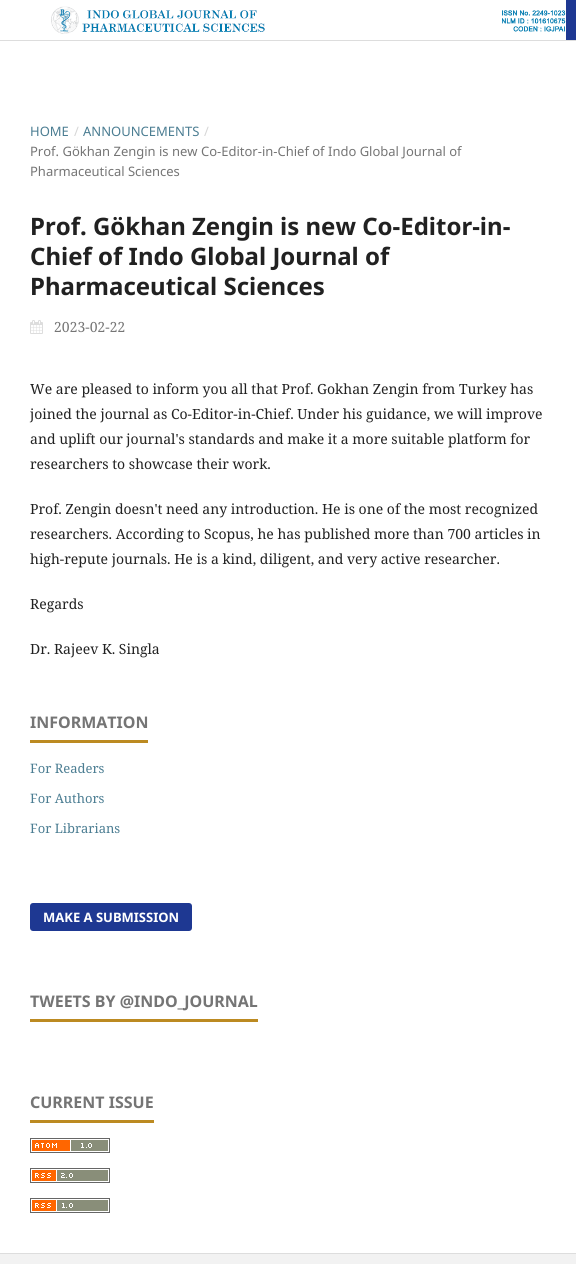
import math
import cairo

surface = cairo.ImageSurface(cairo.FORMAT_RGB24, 576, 1264)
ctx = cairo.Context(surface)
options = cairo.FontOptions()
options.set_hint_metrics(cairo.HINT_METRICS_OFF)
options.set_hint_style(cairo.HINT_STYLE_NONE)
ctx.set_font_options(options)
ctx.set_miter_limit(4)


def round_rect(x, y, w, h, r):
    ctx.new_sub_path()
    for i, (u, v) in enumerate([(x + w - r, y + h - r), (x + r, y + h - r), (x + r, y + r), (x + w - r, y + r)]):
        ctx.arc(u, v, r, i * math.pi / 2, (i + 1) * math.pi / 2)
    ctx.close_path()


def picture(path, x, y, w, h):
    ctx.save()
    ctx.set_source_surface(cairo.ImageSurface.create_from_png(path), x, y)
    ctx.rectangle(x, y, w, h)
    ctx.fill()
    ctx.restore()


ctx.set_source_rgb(1, 1, 1)
ctx.paint()
ctx.set_source_rgb(0.118, 0.22, 0.573)
ctx.rectangle(566, 0, 10, 40)
ctx.fill()
ctx.set_source_rgb(0.867, 0.867, 0.867)
ctx.rectangle(0, 40, 576, 1)
ctx.fill()
picture("img1.png", 51, 6, 515, 28)
ctx.select_font_face("Noto Sans")
ctx.set_font_size(13)
ctx.set_source_rgb(0.294, 0.49, 0.573)
ctx.move_to(30, 136)
ctx.show_text("HOME")
ctx.set_source_rgb(0.839, 0.839, 0.839)
ctx.move_to(74, 136)
ctx.show_text("/")
ctx.set_source_rgb(0.294, 0.49, 0.573)
ctx.move_to(83, 136)
ctx.show_text("ANNOUNCEMENTS")
ctx.set_source_rgb(0.839, 0.839, 0.839)
ctx.move_to(204, 136)
ctx.show_text("/")
ctx.set_source_rgb(0.459, 0.459, 0.459)
ctx.move_to(30, 156)
ctx.show_text("Prof. Gökhan Zengin is new Co-Editor-in-Chief of Indo Global Journal of")
ctx.move_to(30, 176)
ctx.show_text("Pharmaceutical Sciences")
ctx.select_font_face("Noto Sans", cairo.FONT_SLANT_NORMAL, cairo.FONT_WEIGHT_BOLD)
ctx.set_font_size(24)
ctx.set_source_rgb(0.129, 0.129, 0.129)
ctx.move_to(30, 235)
ctx.show_text("Prof. Gökhan Zengin is new Co-Editor-in-")
ctx.move_to(30, 265)
ctx.show_text("Chief of Indo Global Journal of")
ctx.move_to(30, 295)
ctx.show_text("Pharmaceutical Sciences")
picture("img2.png", 30, 320, 13, 14)
ctx.select_font_face("Noto Serif")
ctx.set_font_size(14)
ctx.set_source_rgb(0.459, 0.459, 0.459)
ctx.move_to(54, 332)
ctx.show_text("2023-02-22")
ctx.set_source_rgb(0.129, 0.129, 0.129)
ctx.move_to(30, 394)
ctx.show_text("We are pleased to inform you all that Prof. Gokhan Zengin from Turkey has")
ctx.move_to(30, 419)
ctx.show_text("joined the journal as Co-Editor-in-Chief. Under his guidance, we will improve")
ctx.move_to(30, 444)
ctx.show_text("and uplift our journal's standards and make it a more suitable platform for")
ctx.move_to(30, 469)
ctx.show_text("researchers to showcase their work.")
ctx.move_to(30, 514)
ctx.show_text("Prof. Zengin doesn't need any introduction. He is one of the most recognized")
ctx.move_to(30, 539)
ctx.show_text("researchers. According to Scopus, he has published more than 700 articles in")
ctx.move_to(30, 564)
ctx.show_text("high-repute journals. He is a kind, diligent, and very active researcher.")
ctx.move_to(30, 609)
ctx.show_text("Regards")
ctx.move_to(30, 654)
ctx.show_text("Dr. Rajeev K. Singla")
ctx.set_source_rgb(0.737, 0.541, 0.129)
ctx.rectangle(30, 740, 118, 3)
ctx.fill()
ctx.select_font_face("Noto Sans", cairo.FONT_SLANT_NORMAL, cairo.FONT_WEIGHT_BOLD)
ctx.set_font_size(16)
ctx.set_source_rgb(0.459, 0.459, 0.459)
ctx.move_to(30, 728)
ctx.show_text("INFORMATION")
ctx.select_font_face("Noto Serif")
ctx.set_font_size(13)
ctx.set_source_rgb(0.294, 0.49, 0.573)
ctx.move_to(30, 773)
ctx.show_text("For Readers")
ctx.move_to(30, 803)
ctx.show_text("For Authors")
ctx.move_to(30, 833)
ctx.show_text("For Librarians")
ctx.set_source_rgb(0.118, 0.22, 0.573)
round_rect(30, 903, 162, 28, 3)
ctx.fill()
ctx.select_font_face("Noto Sans", cairo.FONT_SLANT_NORMAL, cairo.FONT_WEIGHT_BOLD)
ctx.set_source_rgb(1, 1, 1)
ctx.move_to(43, 922)
ctx.show_text("MAKE A SUBMISSION")
ctx.set_source_rgb(0.737, 0.541, 0.129)
ctx.rectangle(30, 1019, 228, 3)
ctx.fill()
ctx.set_font_size(16)
ctx.set_source_rgb(0.459, 0.459, 0.459)
ctx.move_to(30, 1007)
ctx.show_text("TWEETS BY @INDO_JOURNAL")
ctx.set_source_rgb(0.737, 0.541, 0.129)
ctx.rectangle(30, 1120, 124, 3)
ctx.fill()
ctx.set_source_rgb(0.459, 0.459, 0.459)
ctx.move_to(30, 1108)
ctx.show_text("CURRENT ISSUE")
picture("img3.png", 30, 1138, 80, 15)
picture("img4.png", 30, 1168, 80, 15)
picture("img5.png", 30, 1198, 80, 15)
ctx.set_source_rgb(0.949, 0.949, 0.949)
ctx.rectangle(0, 1254, 576, 10)
ctx.fill()
ctx.set_source_rgb(0.867, 0.867, 0.867)
ctx.rectangle(0, 1253, 576, 1)
ctx.fill()
surface.write_to_png("page.png")
